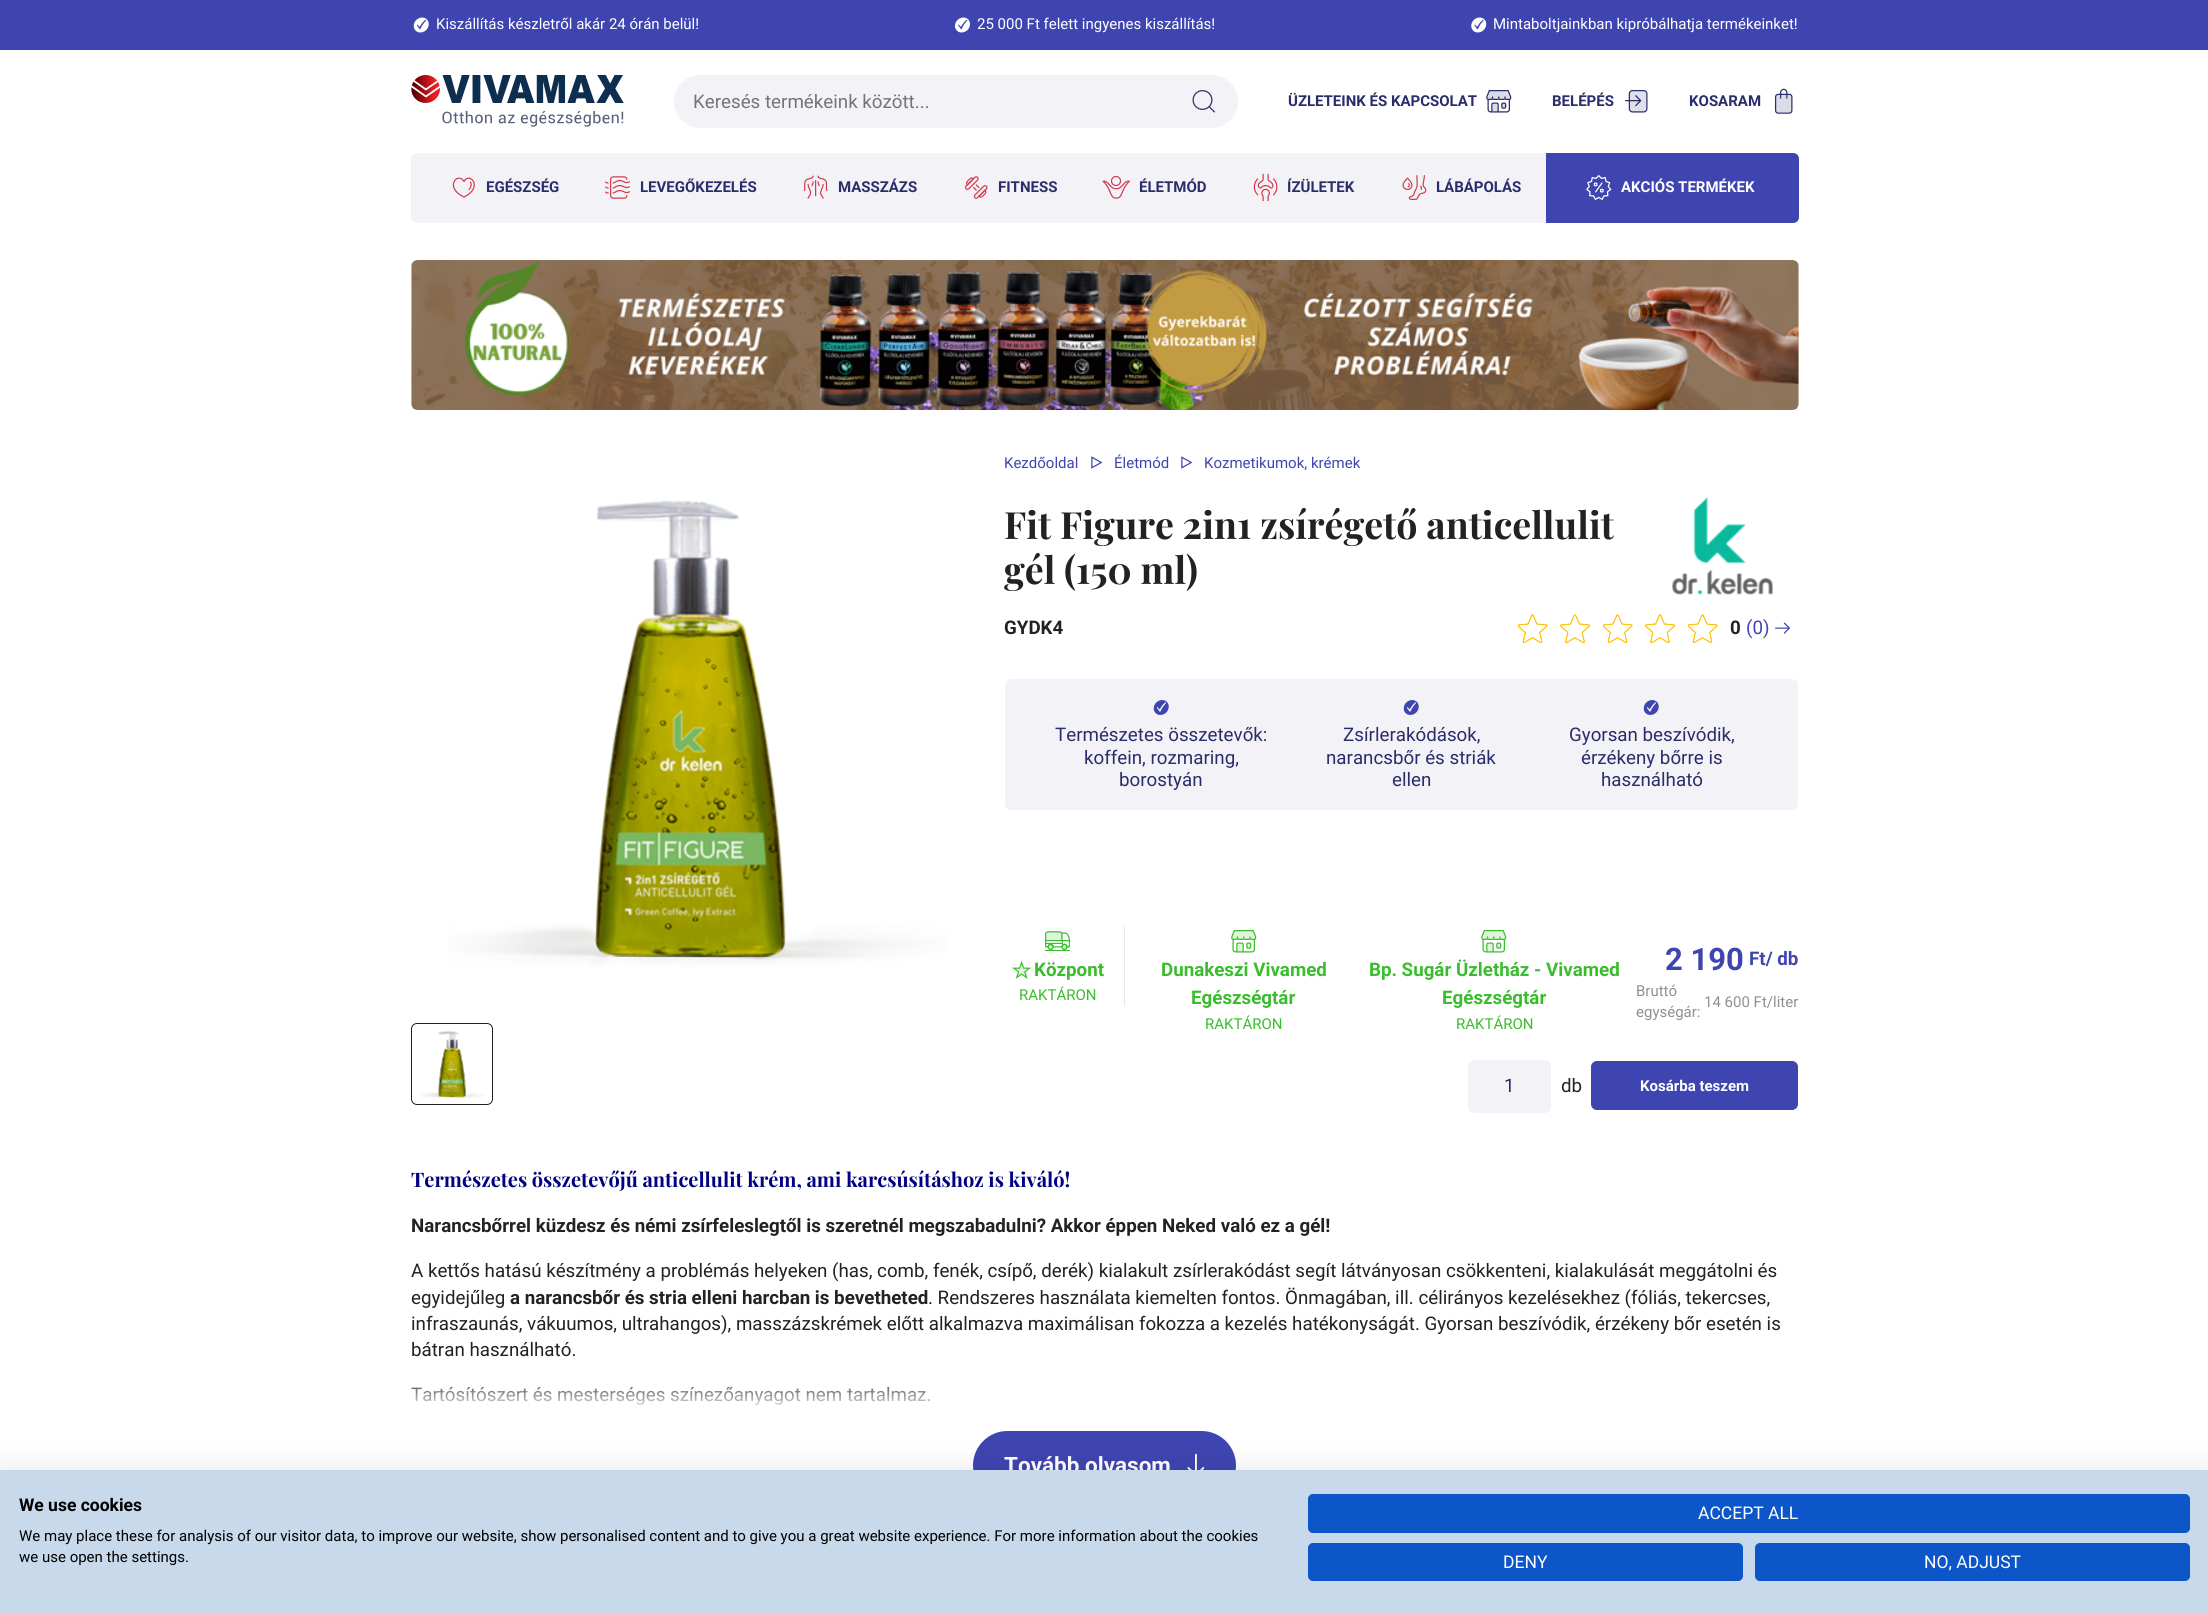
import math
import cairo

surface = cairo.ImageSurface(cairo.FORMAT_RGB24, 2208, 1614)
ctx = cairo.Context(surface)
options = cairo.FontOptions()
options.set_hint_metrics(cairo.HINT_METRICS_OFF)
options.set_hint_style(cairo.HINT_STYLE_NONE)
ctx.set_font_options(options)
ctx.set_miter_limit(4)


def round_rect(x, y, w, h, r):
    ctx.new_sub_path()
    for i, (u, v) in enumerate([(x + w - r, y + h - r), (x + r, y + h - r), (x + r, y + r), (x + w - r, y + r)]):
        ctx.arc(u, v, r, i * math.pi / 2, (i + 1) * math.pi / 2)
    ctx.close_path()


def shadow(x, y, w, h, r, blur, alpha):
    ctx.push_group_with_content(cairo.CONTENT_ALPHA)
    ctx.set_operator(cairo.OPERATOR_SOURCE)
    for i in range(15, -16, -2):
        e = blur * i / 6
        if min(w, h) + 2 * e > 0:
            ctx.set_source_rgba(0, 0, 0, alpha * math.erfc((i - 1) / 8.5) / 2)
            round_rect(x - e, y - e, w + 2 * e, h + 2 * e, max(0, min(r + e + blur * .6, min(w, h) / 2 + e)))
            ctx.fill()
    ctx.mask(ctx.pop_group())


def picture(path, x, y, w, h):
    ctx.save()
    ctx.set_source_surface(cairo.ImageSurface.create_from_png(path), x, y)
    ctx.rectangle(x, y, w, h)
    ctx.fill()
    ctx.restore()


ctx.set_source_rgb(1, 1, 1)
ctx.paint()
ctx.set_source_rgb(0.247, 0.271, 0.69)
ctx.rectangle(0, 0, 2208, 50)
ctx.fill()
picture("img1.png", 413, 17, 16, 16)
ctx.select_font_face("Roboto")
ctx.set_font_size(15)
ctx.set_source_rgb(1, 1, 1)
ctx.move_to(436, 29)
ctx.show_text("Kiszállítás készletről akár 24 órán belül!")
picture("img2.png", 955, 17, 15, 16)
ctx.move_to(977, 29)
ctx.show_text("25 000 Ft felett ingyenes kiszállítás!")
picture("img3.png", 1471, 17, 16, 16)
ctx.move_to(1493, 29)
ctx.show_text("Mintaboltjainkban kipróbálhatja termékeinket!")
picture("img4.png", 411, 75, 213, 52)
ctx.set_source_rgb(0.953, 0.953, 0.965)
round_rect(674.5, 75.5, 563, 52, 26)
ctx.fill_preserve()
ctx.set_line_width(1)
ctx.stroke()
ctx.set_font_size(18.75)
ctx.set_source_rgb(0.459, 0.459, 0.459)
ctx.move_to(693, 108)
ctx.show_text("Keresés termékeink között...")
picture("img5.png", 1192, 90, 23, 23)
picture("img6.png", 1486, 90, 26, 23)
ctx.select_font_face("Roboto", cairo.FONT_SLANT_NORMAL, cairo.FONT_WEIGHT_BOLD)
ctx.set_font_size(15)
ctx.set_source_rgb(0.169, 0.176, 0.42)
ctx.move_to(1288, 106)
ctx.show_text("ÜZLETEINK ÉS KAPCSOLAT")
picture("img7.png", 1625, 90, 23, 23)
ctx.move_to(1552, 106)
ctx.show_text("BELÉPÉS")
picture("img8.png", 1775, 88, 18, 26)
ctx.move_to(1689, 106)
ctx.show_text("KOSARAM")
ctx.set_source_rgb(0.953, 0.953, 0.965)
round_rect(411, 153, 1388, 70, 6)
ctx.fill()
ctx.new_path()
ctx.move_to(464, 181.5)
ctx.curve_to(458, 171, 443.5, 187.5, 464, 197)
ctx.curve_to(484, 187.5, 469.5, 171, 464, 181.5)
ctx.close_path()
ctx.move_to(470.5, 182)
ctx.curve_to(471.5, 183.5, 471.5, 187, 469, 189.5)
ctx.set_source_rgb(0.824, 0.216, 0.286)
ctx.set_line_width(1.2)
ctx.set_line_cap(cairo.LINE_CAP_ROUND)
ctx.set_line_join(cairo.LINE_JOIN_ROUND)
ctx.stroke()
ctx.set_source_rgb(0.169, 0.176, 0.42)
ctx.move_to(486, 192)
ctx.show_text("EGÉSZSÉG")
picture("img9.png", 605, 176, 25, 23)
ctx.move_to(640, 192)
ctx.show_text("LEVEGŐKEZELÉS")
picture("img10.png", 803, 175, 25, 24)
ctx.move_to(838, 192)
ctx.show_text("MASSZÁZS")
picture("img11.png", 964, 176, 24, 23)
ctx.move_to(998, 192)
ctx.show_text("FITNESS")
picture("img12.png", 1102, 175, 28, 24)
ctx.move_to(1139, 192)
ctx.show_text("ÉLETMÓD")
picture("img13.png", 1253, 173, 25, 29)
ctx.move_to(1287, 192)
ctx.show_text("ÍZÜLETEK")
picture("img14.png", 1402, 175, 25, 25)
ctx.move_to(1436, 192)
ctx.show_text("LÁBÁPOLÁS")
ctx.set_source_rgb(0.247, 0.271, 0.69)
ctx.new_path()
ctx.move_to(1546, 153)
ctx.line_to(1793, 153)
ctx.curve_to(1796.5, 153, 1799, 155.5, 1799, 159)
ctx.line_to(1799, 217)
ctx.curve_to(1799, 220.5, 1796.5, 223, 1793, 223)
ctx.line_to(1546, 223)
ctx.close_path()
ctx.fill()
picture("img15.png", 1586, 175, 26, 25)
ctx.set_source_rgb(1, 1, 1)
ctx.move_to(1621, 192)
ctx.show_text("AKCIÓS TERMÉKEK")
picture("img16.png", 411, 260, 1388, 150)
picture("img17.png", 448, 500, 499, 467)
round_rect(411.5, 1023.5, 81, 81, 5.5)
ctx.set_source_rgb(0.133, 0.133, 0.133)
ctx.set_line_width(1)
ctx.set_line_cap(cairo.LINE_CAP_BUTT)
ctx.set_line_join(cairo.LINE_JOIN_MITER)
ctx.stroke()
picture("img18.png", 418, 1030, 68, 69)
ctx.select_font_face("Roboto")
ctx.set_source_rgb(0.247, 0.271, 0.69)
ctx.move_to(1004, 468)
ctx.show_text("Kezdőoldal")
picture("img19.png", 1091, 456, 12, 13)
ctx.move_to(1114, 468)
ctx.show_text("Életmód")
picture("img19.png", 1181, 456, 12, 13)
ctx.move_to(1204, 468)
ctx.show_text("Kozmetikumok, krémek")
ctx.select_font_face("Playfair Display", cairo.FONT_SLANT_NORMAL, cairo.FONT_WEIGHT_BOLD)
ctx.set_font_size(37.5)
ctx.set_source_rgb(0.133, 0.133, 0.133)
ctx.move_to(1004, 539)
ctx.show_text("Fit Figure 2in1 zsírégető anticellulit")
ctx.move_to(1004, 584)
ctx.show_text("gél (150 ml)")
picture("img20.png", 1672, 497, 101, 98)
ctx.select_font_face("Roboto", cairo.FONT_SLANT_NORMAL, cairo.FONT_WEIGHT_BOLD)
ctx.set_font_size(18.75)
ctx.move_to(1004, 634)
ctx.show_text("GYDK4")
picture("img21.png", 1518, 614, 30, 29)
picture("img22.png", 1518, 614, 30, 29)
picture("img23.png", 1560, 614, 30, 29)
picture("img24.png", 1560, 614, 30, 29)
picture("img21.png", 1603, 614, 30, 29)
picture("img22.png", 1603, 614, 30, 29)
picture("img23.png", 1645, 614, 30, 29)
picture("img24.png", 1645, 614, 30, 29)
picture("img21.png", 1688, 614, 30, 29)
picture("img22.png", 1688, 614, 30, 29)
ctx.move_to(1730, 634)
ctx.show_text("0")
ctx.select_font_face("Roboto")
ctx.set_source_rgb(0.247, 0.271, 0.69)
ctx.move_to(1746, 634)
ctx.show_text("(0)")
picture("img25.png", 1775, 622, 15, 12)
ctx.set_source_rgb(0.953, 0.953, 0.965)
round_rect(1005, 679, 793, 131, 6)
ctx.fill()
picture("img26.png", 1153, 700, 16, 15)
ctx.set_source_rgb(0.169, 0.176, 0.42)
ctx.move_to(1055, 741)
ctx.show_text("Természetes összetevők:")
ctx.move_to(1084, 764)
ctx.show_text("koffein, rozmaring,")
ctx.move_to(1119, 786)
ctx.show_text("borostyán")
picture("img26.png", 1403, 700, 16, 15)
ctx.move_to(1343, 741)
ctx.show_text("Zsírlerakódások,")
ctx.move_to(1326, 764)
ctx.show_text("narancsbőr és striák")
ctx.move_to(1392, 786)
ctx.show_text("ellen")
picture("img26.png", 1643, 700, 16, 15)
ctx.move_to(1569, 741)
ctx.show_text("Gyorsan beszívódik,")
ctx.move_to(1581, 764)
ctx.show_text("érzékeny bőrre is")
ctx.move_to(1601, 786)
ctx.show_text("használható")
ctx.set_source_rgb(0.91, 0.91, 0.91)
ctx.rectangle(1124, 926, 1, 80)
ctx.fill()
picture("img27.png", 1045, 931, 25, 20)
picture("img28.png", 1012, 960, 19, 19)
ctx.select_font_face("Roboto", cairo.FONT_SLANT_NORMAL, cairo.FONT_WEIGHT_BOLD)
ctx.set_source_rgb(0.227, 0.741, 0.173)
ctx.move_to(1034, 976)
ctx.show_text("Központ")
ctx.select_font_face("Roboto")
ctx.set_font_size(15)
ctx.move_to(1019, 1000)
ctx.show_text("RAKTÁRON")
picture("img29.png", 1231, 930, 26, 23)
ctx.select_font_face("Roboto", cairo.FONT_SLANT_NORMAL, cairo.FONT_WEIGHT_BOLD)
ctx.set_font_size(18.75)
ctx.move_to(1161, 976)
ctx.show_text("Dunakeszi Vivamed")
ctx.move_to(1191, 1004)
ctx.show_text("Egészségtár")
ctx.select_font_face("Roboto")
ctx.set_font_size(15)
ctx.move_to(1205, 1029)
ctx.show_text("RAKTÁRON")
picture("img29.png", 1481, 930, 26, 23)
ctx.select_font_face("Roboto", cairo.FONT_SLANT_NORMAL, cairo.FONT_WEIGHT_BOLD)
ctx.set_font_size(18.75)
ctx.move_to(1369, 976)
ctx.show_text("Bp. Sugár Üzletház - Vivamed")
ctx.move_to(1442, 1004)
ctx.show_text("Egészségtár")
ctx.select_font_face("Roboto")
ctx.set_font_size(15)
ctx.move_to(1456, 1029)
ctx.show_text("RAKTÁRON")
ctx.select_font_face("Roboto", cairo.FONT_SLANT_NORMAL, cairo.FONT_WEIGHT_BOLD)
ctx.set_font_size(31)
ctx.set_source_rgb(0.247, 0.271, 0.69)
ctx.move_to(1665, 970)
ctx.show_text("2 190")
ctx.set_font_size(18.75)
ctx.move_to(1749, 965)
ctx.show_text("Ft/ db")
ctx.select_font_face("Roboto")
ctx.set_font_size(15)
ctx.set_source_rgb(0.565, 0.565, 0.565)
ctx.move_to(1636, 996)
ctx.show_text("Bruttó")
ctx.move_to(1636, 1017)
ctx.show_text("egységár:")
ctx.move_to(1704, 1007)
ctx.show_text("14 600 Ft/liter")
ctx.set_source_rgb(0.953, 0.953, 0.965)
round_rect(1468.5, 1060.5, 82, 52, 5.5)
ctx.fill_preserve()
ctx.stroke()
ctx.set_font_size(18.75)
ctx.set_source_rgb(0.169, 0.176, 0.42)
ctx.move_to(1504, 1092)
ctx.show_text("1")
ctx.set_source_rgb(0.133, 0.133, 0.133)
ctx.move_to(1561, 1092)
ctx.show_text("db")
ctx.set_source_rgb(0.247, 0.271, 0.69)
round_rect(1591.5, 1061.5, 206, 48, 5.5)
ctx.fill_preserve()
ctx.stroke()
ctx.select_font_face("Roboto", cairo.FONT_SLANT_NORMAL, cairo.FONT_WEIGHT_BOLD)
ctx.set_font_size(15)
ctx.set_source_rgb(1, 1, 1)
ctx.move_to(1640, 1091)
ctx.show_text("Kosárba teszem")
ctx.select_font_face("Playfair Display", cairo.FONT_SLANT_NORMAL, cairo.FONT_WEIGHT_BOLD)
ctx.set_font_size(20)
ctx.set_source_rgb(0, 0, 0.502)
ctx.move_to(411, 1187)
ctx.show_text("Természetes összetevőjű anticellulit krém, ami karcsúsításhoz is kiváló!")
ctx.select_font_face("Roboto", cairo.FONT_SLANT_NORMAL, cairo.FONT_WEIGHT_BOLD)
ctx.set_font_size(18.75)
ctx.set_source_rgb(0.133, 0.133, 0.133)
ctx.move_to(411, 1232)
ctx.show_text("Narancsbőrrel küzdesz és némi zsírfeleslegtől is szeretnél megszabadulni? Akkor éppen Neked való ez a gél!")
ctx.select_font_face("Roboto")
ctx.move_to(411, 1277)
ctx.show_text("A kettős hatású készítmény a problémás helyeken (has, comb, fenék, csípő, derék) kialakult zsírlerakódást segít látványosan csökkenteni, kialakulását meggátolni és")
ctx.move_to(411, 1304)
ctx.show_text("egyidejűleg")
ctx.select_font_face("Roboto", cairo.FONT_SLANT_NORMAL, cairo.FONT_WEIGHT_BOLD)
ctx.move_to(510, 1304)
ctx.show_text("a narancsbőr és stria elleni harcban is bevetheted")
ctx.select_font_face("Roboto")
ctx.move_to(928, 1304)
ctx.show_text(". Rendszeres használata kiemelten fontos. Önmagában, ill. célirányos kezelésekhez (fóliás, tekercses,")
ctx.move_to(411, 1330)
ctx.show_text("infraszaunás, vákuumos, ultrahangos), masszázskrémek előtt alkalmazva maximálisan fokozza a kezelés hatékonyságát. Gyorsan beszívódik, érzékeny bőr esetén is")
ctx.move_to(411, 1356)
ctx.show_text("bátran használható.")
ctx.move_to(411, 1401)
ctx.show_text("Tartósítószert és mesterséges színezőanyagot nem tartalmaz.")
gradient = cairo.LinearGradient(1105, 1375, 1105, 1413)
gradient.add_color_stop_rgba(0, 1, 1, 1, 0)
gradient.add_color_stop_rgba(0.99, 1, 1, 1, 1)
gradient.add_color_stop_rgba(1, 1, 1, 1, 1)
ctx.set_source(gradient)
ctx.rectangle(411, 1386, 519, 19)
ctx.fill()
ctx.set_source_rgb(0.247, 0.271, 0.69)
round_rect(973, 1431, 263, 69, 34.5)
ctx.fill()
picture("img30.png", 1187, 1453, 18, 17)
ctx.select_font_face("Roboto", cairo.FONT_SLANT_NORMAL, cairo.FONT_WEIGHT_BOLD)
ctx.set_font_size(22.5)
ctx.set_source_rgb(1, 1, 1)
ctx.move_to(1004, 1473)
ctx.show_text("Tovább olvasom")
ctx.set_source_rgb(0, 0, 0)
shadow(0, 1470, 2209, 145, 0, 15, 0.1)
ctx.set_source_rgb(0.784, 0.851, 0.918)
ctx.rectangle(0, 1470, 2208, 144)
ctx.fill()
ctx.set_font_size(17.5)
ctx.set_source_rgb(0, 0, 0)
ctx.move_to(19, 1511)
ctx.show_text("We use cookies")
ctx.select_font_face("Roboto")
ctx.set_font_size(15)
ctx.move_to(19, 1541)
ctx.show_text("We may place these for analysis of our visitor data, to improve our website, show personalised content and to give you a great website experience. For more information about the cookies")
ctx.move_to(19, 1562)
ctx.show_text("we use open the settings.")
ctx.set_source_rgb(0.051, 0.337, 0.788)
round_rect(1308.5, 1494.5, 881, 38, 4.5)
ctx.fill_preserve()
ctx.stroke()
ctx.set_font_size(17.5)
ctx.set_source_rgb(1, 1, 1)
ctx.move_to(1698, 1519)
ctx.show_text("ACCEPT ALL")
ctx.set_source_rgb(0.051, 0.337, 0.788)
round_rect(1308.5, 1543.5, 434, 37, 4.5)
ctx.fill_preserve()
ctx.stroke()
ctx.set_source_rgb(1, 1, 1)
ctx.move_to(1503, 1568)
ctx.show_text("DENY")
ctx.set_source_rgb(0.051, 0.337, 0.788)
round_rect(1755.5, 1543.5, 434, 37, 4.5)
ctx.fill_preserve()
ctx.stroke()
ctx.set_source_rgb(1, 1, 1)
ctx.move_to(1924, 1568)
ctx.show_text("NO, ADJUST")
surface.write_to_png("page.png")
